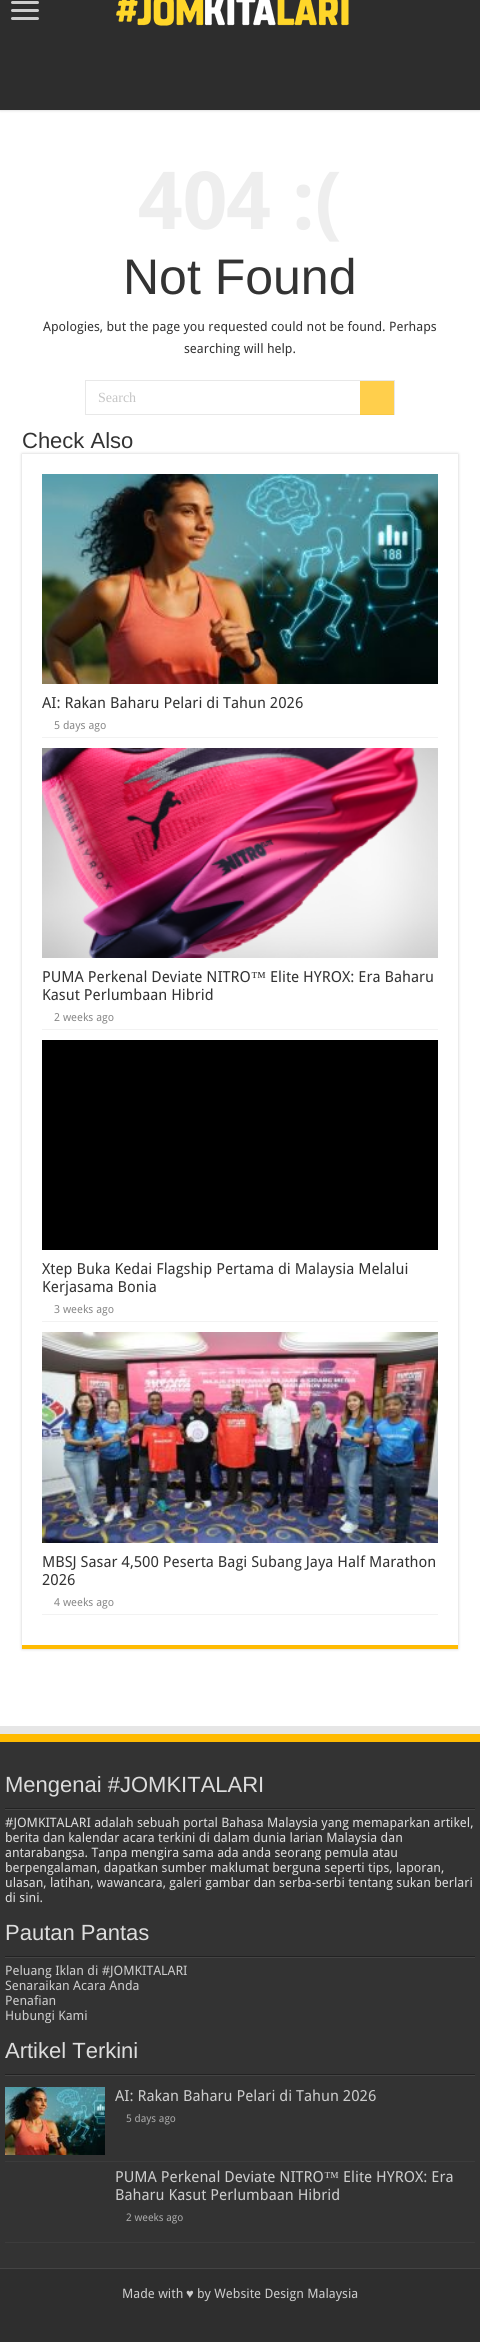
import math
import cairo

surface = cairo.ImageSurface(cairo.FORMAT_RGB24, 480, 2342)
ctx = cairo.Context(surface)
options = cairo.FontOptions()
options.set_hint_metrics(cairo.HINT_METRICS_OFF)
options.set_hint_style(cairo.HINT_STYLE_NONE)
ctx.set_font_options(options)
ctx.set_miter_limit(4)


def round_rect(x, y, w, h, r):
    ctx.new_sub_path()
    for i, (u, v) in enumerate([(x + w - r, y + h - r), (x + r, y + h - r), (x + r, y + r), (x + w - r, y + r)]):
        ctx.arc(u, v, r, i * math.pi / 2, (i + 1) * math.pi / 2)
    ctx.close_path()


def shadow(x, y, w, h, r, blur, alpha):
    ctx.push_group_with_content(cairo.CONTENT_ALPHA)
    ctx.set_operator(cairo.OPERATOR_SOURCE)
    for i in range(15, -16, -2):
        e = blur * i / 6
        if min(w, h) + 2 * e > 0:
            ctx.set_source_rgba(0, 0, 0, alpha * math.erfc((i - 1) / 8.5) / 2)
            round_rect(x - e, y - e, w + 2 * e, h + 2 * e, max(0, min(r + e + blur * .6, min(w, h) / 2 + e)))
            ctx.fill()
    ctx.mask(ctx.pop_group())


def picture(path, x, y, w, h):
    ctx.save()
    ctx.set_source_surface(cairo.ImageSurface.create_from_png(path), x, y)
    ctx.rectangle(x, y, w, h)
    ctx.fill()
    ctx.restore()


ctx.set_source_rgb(1, 1, 1)
ctx.paint()
ctx.set_source_rgb(0.792, 0.792, 0.792)
shadow(0, -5, 480, 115, 0, 1.5, 1)
ctx.set_source_rgb(0.176, 0.176, 0.176)
ctx.rectangle(0, 0, 480, 110)
ctx.fill()
ctx.set_source_rgb(0.8, 0.8, 0.8)
round_rect(11, 1, 28, 3, 1.5)
ctx.fill()
round_rect(11, 9, 28, 3, 1.5)
ctx.fill()
round_rect(11, 17, 28, 3, 1.5)
ctx.fill()
picture("img1.png", 116, 0, 233, 26)
ctx.select_font_face("Droid Sans", cairo.FONT_SLANT_NORMAL, cairo.FONT_WEIGHT_BOLD)
ctx.set_font_size(80)
ctx.set_source_rgb(0.933, 0.933, 0.933)
ctx.move_to(139, 229)
ctx.show_text("404 :(")
ctx.select_font_face("Liberation Sans")
ctx.set_font_size(50)
ctx.set_source_rgb(0.2, 0.2, 0.2)
ctx.move_to(123, 294)
ctx.show_text("Not Found")
ctx.select_font_face("Droid Sans")
ctx.set_font_size(13)
ctx.move_to(43, 331)
ctx.show_text("Apologies, but the page you requested could not be found. Perhaps")
ctx.move_to(184, 353)
ctx.show_text("searching will help.")
ctx.rectangle(85.5, 380.5, 309, 34)
ctx.set_source_rgb(0.91, 0.91, 0.91)
ctx.set_line_width(1)
ctx.stroke()
ctx.select_font_face("Liberation Serif")
ctx.set_font_size(14)
ctx.set_source_rgb(0.773, 0.773, 0.773)
ctx.move_to(98, 402)
ctx.show_text("Search")
ctx.set_source_rgba(1, 0.733, 0.004, 0.7)
ctx.rectangle(360, 381, 34, 34)
ctx.fill()
ctx.save()
ctx.set_fill_rule(cairo.FILL_RULE_EVEN_ODD)
ctx.new_path()
ctx.move_to(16, 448)
ctx.line_to(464, 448)
ctx.line_to(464, 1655)
ctx.line_to(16, 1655)
ctx.close_path()
ctx.move_to(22, 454)
ctx.line_to(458, 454)
ctx.line_to(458, 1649)
ctx.line_to(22, 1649)
ctx.close_path()
ctx.clip()
ctx.set_source_rgb(0.792, 0.792, 0.792)
shadow(22, 454, 436, 1195, 0, 1.5, 1)
ctx.restore()
ctx.select_font_face("Liberation Sans")
ctx.set_font_size(22)
ctx.set_source_rgb(0.2, 0.2, 0.2)
ctx.move_to(22, 448)
ctx.show_text("Check Also")
ctx.set_source_rgb(1, 0.733, 0.004)
ctx.rectangle(22, 1645, 436, 4)
ctx.fill()
picture("img2.png", 42, 474, 396, 210)
ctx.select_font_face("Droid Sans")
ctx.set_font_size(15.2)
ctx.set_source_rgb(0.2, 0.2, 0.2)
ctx.move_to(42, 708)
ctx.show_text("AI: Rakan Baharu Pelari di Tahun 2026")
ctx.set_source_rgb(0.949, 0.949, 0.949)
ctx.rectangle(42, 737, 396, 1)
ctx.fill()
ctx.set_font_size(11)
ctx.set_source_rgb(0.533, 0.533, 0.533)
ctx.move_to(54, 729)
ctx.show_text("5 days ago")
picture("img3.png", 42, 748, 396, 210)
ctx.set_font_size(15.2)
ctx.set_source_rgb(0.2, 0.2, 0.2)
ctx.move_to(42, 982)
ctx.show_text("PUMA Perkenal Deviate NITRO")
ctx.select_font_face("Liberation Serif")
ctx.move_to(251, 982)
ctx.show_text("™")
ctx.select_font_face("Droid Sans")
ctx.move_to(270, 982)
ctx.show_text("Elite HYROX: Era Baharu")
ctx.move_to(42, 1000)
ctx.show_text("Kasut Perlumbaan Hibrid")
ctx.set_source_rgb(0.949, 0.949, 0.949)
ctx.rectangle(42, 1029, 396, 1)
ctx.fill()
ctx.set_font_size(11)
ctx.set_source_rgb(0.533, 0.533, 0.533)
ctx.move_to(54, 1021)
ctx.show_text("2 weeks ago")
ctx.set_source_rgb(0, 0, 0)
ctx.rectangle(42, 1040, 396, 210)
ctx.fill()
ctx.set_font_size(15.2)
ctx.set_source_rgb(0.2, 0.2, 0.2)
ctx.move_to(42, 1274)
ctx.show_text("Xtep Buka Kedai Flagship Pertama di Malaysia Melalui")
ctx.move_to(42, 1292)
ctx.show_text("Kerjasama Bonia")
ctx.set_source_rgb(0.949, 0.949, 0.949)
ctx.rectangle(42, 1321, 396, 1)
ctx.fill()
ctx.set_font_size(11)
ctx.set_source_rgb(0.533, 0.533, 0.533)
ctx.move_to(54, 1313)
ctx.show_text("3 weeks ago")
picture("img4.png", 42, 1332, 396, 211)
ctx.set_font_size(15.2)
ctx.set_source_rgb(0.2, 0.2, 0.2)
ctx.move_to(42, 1567)
ctx.show_text("MBSJ Sasar 4,500 Peserta Bagi Subang Jaya Half Marathon")
ctx.move_to(42, 1585)
ctx.show_text("2026")
ctx.set_source_rgb(0.949, 0.949, 0.949)
ctx.rectangle(42, 1614, 396, 1)
ctx.fill()
ctx.set_font_size(11)
ctx.set_source_rgb(0.533, 0.533, 0.533)
ctx.move_to(54, 1606)
ctx.show_text("4 weeks ago")
ctx.set_source_rgb(0.902, 0.902, 0.902)
ctx.rectangle(0, 1726, 480, 8)
ctx.fill()
ctx.set_source_rgb(0.2, 0.2, 0.2)
ctx.rectangle(0, 1742, 480, 526)
ctx.fill()
ctx.set_source_rgb(1, 0.733, 0.004)
ctx.rectangle(0, 1734, 480, 8)
ctx.fill()
ctx.set_source_rgb(0.133, 0.133, 0.133)
ctx.rectangle(5, 1808, 470, 1)
ctx.fill()
ctx.select_font_face("Liberation Sans")
ctx.set_font_size(22)
ctx.set_source_rgb(0.867, 0.867, 0.867)
ctx.move_to(5, 1792)
ctx.show_text("Mengenai #JOMKITALARI")
ctx.set_source_rgb(0.267, 0.267, 0.267)
ctx.rectangle(5, 1809, 470, 1)
ctx.fill()
ctx.select_font_face("Droid Sans")
ctx.set_font_size(13)
ctx.set_source_rgb(0.867, 0.867, 0.867)
ctx.move_to(5, 1827)
ctx.show_text("#JOMKITALARI adalah sebuah portal Bahasa Malaysia yang memaparkan artikel,")
ctx.move_to(5, 1842)
ctx.show_text("berita dan kalendar acara terkini di dalam dunia larian Malaysia dan")
ctx.move_to(5, 1857)
ctx.show_text("antarabangsa. Tanpa mengira sama ada anda seorang pemula atau")
ctx.move_to(5, 1872)
ctx.show_text("berpengalaman, dapatkan sumber maklumat berguna seperti tips, laporan,")
ctx.move_to(5, 1887)
ctx.show_text("ulasan, latihan, wawancara, galeri gambar dan serba-serbi tentang sukan berlari")
ctx.move_to(5, 1902)
ctx.show_text("di sini.")
ctx.set_source_rgb(0.133, 0.133, 0.133)
ctx.rectangle(5, 1956, 470, 1)
ctx.fill()
ctx.select_font_face("Liberation Sans")
ctx.set_font_size(22)
ctx.set_source_rgb(0.867, 0.867, 0.867)
ctx.move_to(5, 1940)
ctx.show_text("Pautan Pantas")
ctx.set_source_rgb(0.267, 0.267, 0.267)
ctx.rectangle(5, 1957, 470, 1)
ctx.fill()
ctx.select_font_face("Droid Sans")
ctx.set_font_size(13)
ctx.set_source_rgb(0.8, 0.8, 0.8)
ctx.move_to(5, 1975)
ctx.show_text("Peluang Iklan di #JOMKITALARI")
ctx.move_to(5, 1990)
ctx.show_text("Senaraikan Acara Anda")
ctx.move_to(5, 2005)
ctx.show_text("Penafian")
ctx.move_to(5, 2020)
ctx.show_text("Hubungi Kami")
ctx.set_source_rgb(0.133, 0.133, 0.133)
ctx.rectangle(5, 2074, 470, 1)
ctx.fill()
ctx.select_font_face("Liberation Sans")
ctx.set_font_size(22)
ctx.set_source_rgb(0.867, 0.867, 0.867)
ctx.move_to(5, 2058)
ctx.show_text("Artikel Terkini")
ctx.set_source_rgb(0.267, 0.267, 0.267)
ctx.rectangle(5, 2075, 470, 1)
ctx.fill()
ctx.set_source_rgb(0.235, 0.235, 0.235)
ctx.rectangle(5, 2161, 470, 1)
ctx.fill()
picture("img5.png", 5, 2087, 100, 68)
ctx.select_font_face("Droid Sans")
ctx.set_font_size(15.2)
ctx.set_source_rgb(0.8, 0.8, 0.8)
ctx.move_to(115, 2101)
ctx.show_text("AI: Rakan Baharu Pelari di Tahun 2026")
ctx.set_font_size(10.5)
ctx.set_source_rgb(0.667, 0.667, 0.667)
ctx.move_to(126, 2122)
ctx.show_text("5 days ago")
ctx.set_source_rgb(0.235, 0.235, 0.235)
ctx.rectangle(5, 2242, 470, 1)
ctx.fill()
ctx.set_font_size(15.2)
ctx.set_source_rgb(0.8, 0.8, 0.8)
ctx.move_to(115, 2182)
ctx.show_text("PUMA Perkenal Deviate NITRO")
ctx.select_font_face("Liberation Serif")
ctx.move_to(324, 2182)
ctx.show_text("™")
ctx.select_font_face("Droid Sans")
ctx.move_to(343, 2182)
ctx.show_text("Elite HYROX: Era")
ctx.move_to(115, 2200)
ctx.show_text("Baharu Kasut Perlumbaan Hibrid")
ctx.set_font_size(10.5)
ctx.set_source_rgb(0.667, 0.667, 0.667)
ctx.move_to(126, 2221)
ctx.show_text("2 weeks ago")
ctx.set_source_rgb(0.18, 0.18, 0.18)
ctx.rectangle(0, 2269, 480, 73)
ctx.fill()
ctx.set_source_rgb(0.267, 0.267, 0.267)
ctx.rectangle(0, 2268, 480, 1)
ctx.fill()
ctx.set_font_size(13)
ctx.set_source_rgb(0.8, 0.8, 0.8)
ctx.move_to(122, 2298)
ctx.show_text("Made with")
ctx.select_font_face("Liberation Serif")
ctx.move_to(186, 2298)
ctx.show_text("♥")
ctx.select_font_face("Droid Sans")
ctx.move_to(197, 2298)
ctx.show_text("by Website Design Malaysia")
surface.write_to_png("page.png")
